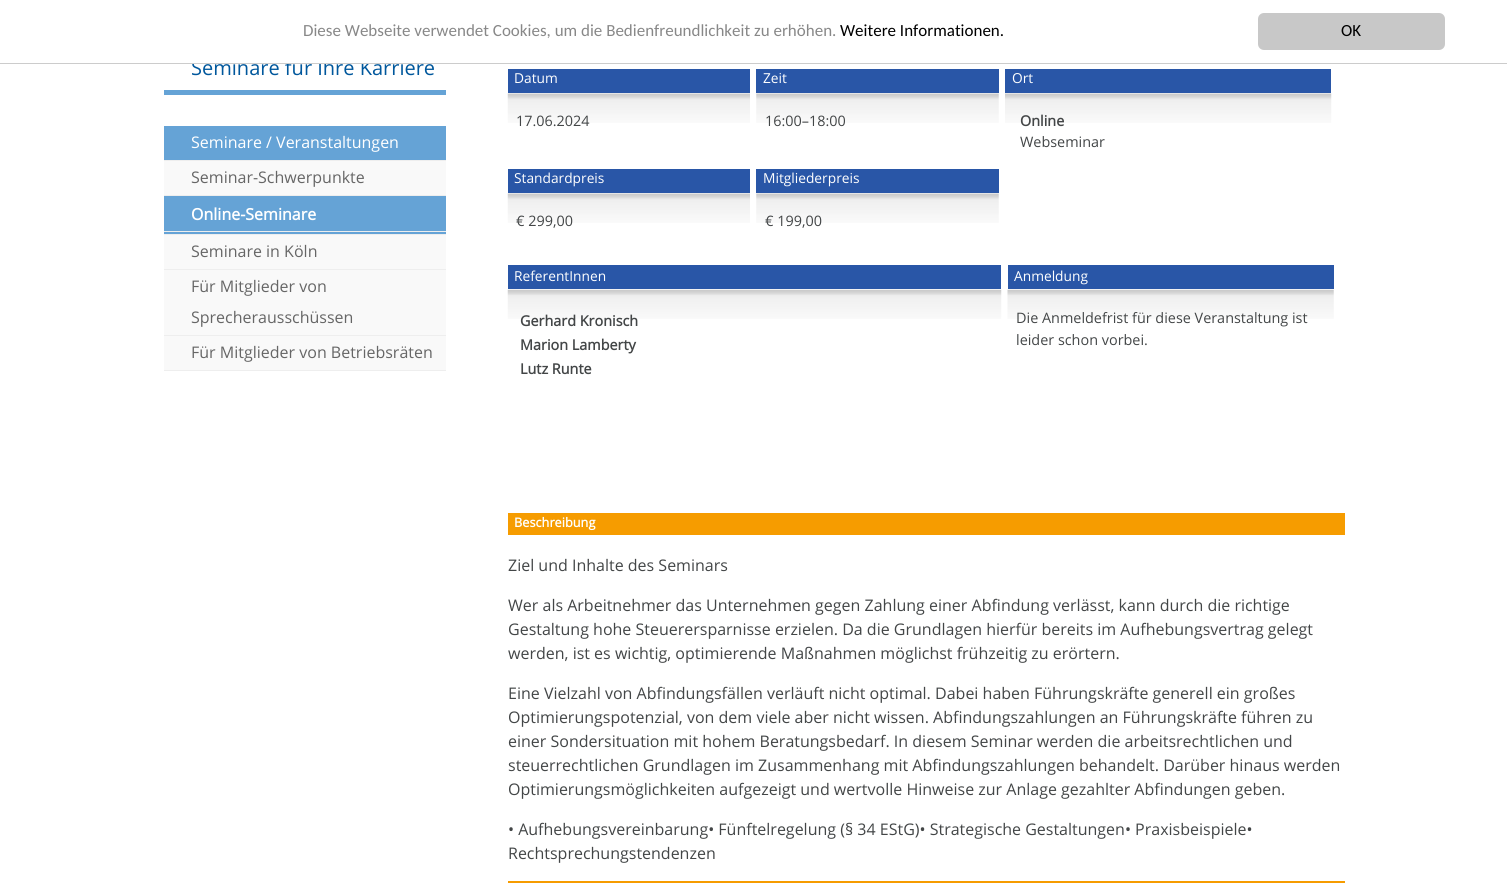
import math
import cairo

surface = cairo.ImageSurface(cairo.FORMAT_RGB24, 1507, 883)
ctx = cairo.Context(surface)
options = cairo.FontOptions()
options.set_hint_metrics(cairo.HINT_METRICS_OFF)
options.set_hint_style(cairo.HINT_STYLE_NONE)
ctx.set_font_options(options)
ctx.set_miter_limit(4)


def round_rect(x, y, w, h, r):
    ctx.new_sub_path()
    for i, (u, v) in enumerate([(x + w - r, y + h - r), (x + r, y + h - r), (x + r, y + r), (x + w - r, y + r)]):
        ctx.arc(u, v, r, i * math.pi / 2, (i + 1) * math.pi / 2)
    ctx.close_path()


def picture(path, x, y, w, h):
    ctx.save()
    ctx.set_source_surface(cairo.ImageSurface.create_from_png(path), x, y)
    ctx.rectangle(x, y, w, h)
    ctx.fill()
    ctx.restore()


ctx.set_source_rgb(1, 1, 1)
ctx.paint()
ctx.select_font_face("Open Sans")
ctx.set_font_size(20)
ctx.set_source_rgb(0, 0.341, 0.612)
ctx.move_to(191, 75)
ctx.show_text("Seminare für Ihre Karriere")
ctx.set_source_rgb(1, 1, 1)
ctx.rectangle(192, 59, 212, 4)
ctx.fill()
ctx.set_source_rgb(0.8, 0.8, 0.8)
ctx.rectangle(0, 63, 1507, 1)
ctx.fill()
ctx.select_font_face("Carlito")
ctx.set_font_size(17)
ctx.set_source_rgb(0.533, 0.533, 0.533)
ctx.move_to(303, 36)
ctx.show_text("Diese Webseite verwendet Cookies, um die Bedienfreundlichkeit zu erhöhen.")
ctx.set_source_rgb(0, 0, 0)
ctx.move_to(840, 36)
ctx.show_text("Weitere Informationen.")
ctx.set_source_rgb(0.784, 0.784, 0.784)
round_rect(1258, 13, 187, 37, 6)
ctx.fill()
ctx.set_source_rgb(0, 0, 0)
ctx.move_to(1341, 36)
ctx.show_text("OK")
ctx.set_source_rgb(0.396, 0.639, 0.839)
ctx.rectangle(164, 90, 282, 5)
ctx.fill()
ctx.rectangle(164, 126, 282, 34)
ctx.fill()
ctx.set_source_rgb(0.933, 0.933, 0.933)
ctx.rectangle(164, 160, 282, 1)
ctx.fill()
ctx.select_font_face("Open Sans")
ctx.set_font_size(16)
ctx.set_source_rgb(1, 1, 1)
ctx.move_to(191, 148)
ctx.show_text("Seminare / Veranstaltungen")
ctx.set_source_rgb(0.973, 0.973, 0.973)
ctx.rectangle(164, 161, 282, 34)
ctx.fill()
ctx.set_source_rgb(0.933, 0.933, 0.933)
ctx.rectangle(164, 195, 282, 1)
ctx.fill()
ctx.set_source_rgb(0.4, 0.4, 0.4)
ctx.move_to(191, 183)
ctx.show_text("Seminar-Schwerpunkte")
ctx.set_source_rgb(0.396, 0.639, 0.839)
ctx.rectangle(164, 196, 282, 38)
ctx.fill()
ctx.set_source_rgb(0.933, 0.933, 0.933)
ctx.rectangle(164, 234, 282, 1)
ctx.fill()
ctx.rectangle(164, 231, 282, 1)
ctx.fill()
ctx.select_font_face("Open Sans", cairo.FONT_SLANT_NORMAL, cairo.FONT_WEIGHT_BOLD)
ctx.set_source_rgb(1, 1, 1)
ctx.move_to(191, 220)
ctx.show_text("Online-Seminare")
ctx.set_source_rgb(0.973, 0.973, 0.973)
ctx.rectangle(164, 235, 282, 34)
ctx.fill()
ctx.set_source_rgb(0.933, 0.933, 0.933)
ctx.rectangle(164, 269, 282, 1)
ctx.fill()
ctx.select_font_face("Open Sans")
ctx.set_source_rgb(0.4, 0.4, 0.4)
ctx.move_to(191, 257)
ctx.show_text("Seminare in Köln")
ctx.set_source_rgb(0.973, 0.973, 0.973)
ctx.rectangle(164, 270, 282, 65)
ctx.fill()
ctx.set_source_rgb(0.933, 0.933, 0.933)
ctx.rectangle(164, 335, 282, 1)
ctx.fill()
ctx.set_source_rgb(0.4, 0.4, 0.4)
ctx.move_to(191, 292)
ctx.show_text("Für Mitglieder von")
ctx.move_to(191, 323)
ctx.show_text("Sprecherausschüssen")
ctx.set_source_rgb(0.973, 0.973, 0.973)
ctx.rectangle(164, 336, 282, 34)
ctx.fill()
ctx.set_source_rgb(0.933, 0.933, 0.933)
ctx.rectangle(164, 370, 282, 1)
ctx.fill()
ctx.set_source_rgb(0.4, 0.4, 0.4)
ctx.move_to(191, 358)
ctx.show_text("Für Mitglieder von Betriebsräten")
picture("img1.png", 507, 93, 243, 30)
ctx.set_source_rgb(0.161, 0.337, 0.655)
ctx.rectangle(508, 69, 242, 24)
ctx.fill()
ctx.set_font_size(13.75)
ctx.set_source_rgb(1, 1, 1)
ctx.move_to(514, 83)
ctx.show_text("Datum")
ctx.set_font_size(14.4)
ctx.set_source_rgb(0.263, 0.275, 0.278)
ctx.move_to(516, 126)
ctx.show_text("17.06.2024")
picture("img2.png", 756, 93, 243, 30)
ctx.set_source_rgb(0.161, 0.337, 0.655)
ctx.rectangle(756, 69, 243, 24)
ctx.fill()
ctx.set_font_size(13.75)
ctx.set_source_rgb(1, 1, 1)
ctx.move_to(763, 83)
ctx.show_text("Zeit")
ctx.set_font_size(14.4)
ctx.set_source_rgb(0.263, 0.275, 0.278)
ctx.move_to(765, 126)
ctx.show_text("16:00–18:00")
picture("img3.png", 1005, 93, 327, 30)
ctx.set_source_rgb(0.161, 0.337, 0.655)
ctx.rectangle(1005, 69, 326, 24)
ctx.fill()
ctx.set_font_size(13.75)
ctx.set_source_rgb(1, 1, 1)
ctx.move_to(1012, 83)
ctx.show_text("Ort")
ctx.select_font_face("Open Sans", cairo.FONT_SLANT_NORMAL, cairo.FONT_WEIGHT_BOLD)
ctx.set_font_size(14.4)
ctx.set_source_rgb(0.263, 0.275, 0.278)
ctx.move_to(1020, 126)
ctx.show_text("Online")
ctx.select_font_face("Open Sans")
ctx.move_to(1020, 147)
ctx.show_text("Webseminar")
picture("img1.png", 507, 193, 243, 30)
ctx.set_source_rgb(0.161, 0.337, 0.655)
ctx.rectangle(508, 169, 242, 24)
ctx.fill()
ctx.set_font_size(13.75)
ctx.set_source_rgb(1, 1, 1)
ctx.move_to(514, 183)
ctx.show_text("Standardpreis")
ctx.set_font_size(14.4)
ctx.set_source_rgb(0.263, 0.275, 0.278)
ctx.move_to(516, 226)
ctx.show_text("€ 299,00")
picture("img2.png", 756, 193, 243, 30)
ctx.set_source_rgb(0.161, 0.337, 0.655)
ctx.rectangle(756, 169, 243, 24)
ctx.fill()
ctx.set_font_size(13.75)
ctx.set_source_rgb(1, 1, 1)
ctx.move_to(763, 183)
ctx.show_text("Mitgliederpreis")
ctx.set_font_size(14.4)
ctx.set_source_rgb(0.263, 0.275, 0.278)
ctx.move_to(765, 226)
ctx.show_text("€ 199,00")
picture("img4.png", 507, 289, 495, 30)
ctx.set_source_rgb(0.161, 0.337, 0.655)
ctx.rectangle(508, 265, 493, 24)
ctx.fill()
ctx.set_font_size(13.75)
ctx.set_source_rgb(1, 1, 1)
ctx.move_to(514, 281)
ctx.show_text("ReferentInnen")
ctx.select_font_face("Open Sans", cairo.FONT_SLANT_NORMAL, cairo.FONT_WEIGHT_BOLD)
ctx.set_font_size(14.4)
ctx.set_source_rgb(0.263, 0.275, 0.278)
ctx.move_to(520, 326)
ctx.show_text("Gerhard Kronisch")
ctx.move_to(520, 350)
ctx.show_text("Marion Lamberty")
ctx.move_to(520, 374)
ctx.show_text("Lutz Runte")
picture("img5.png", 1007, 289, 327, 30)
ctx.set_source_rgb(0.161, 0.337, 0.655)
ctx.rectangle(1008, 265, 326, 24)
ctx.fill()
ctx.select_font_face("Open Sans")
ctx.set_font_size(13.75)
ctx.set_source_rgb(1, 1, 1)
ctx.move_to(1014, 281)
ctx.show_text("Anmeldung")
ctx.set_font_size(14.4)
ctx.set_source_rgb(0.263, 0.275, 0.278)
ctx.move_to(1016, 323)
ctx.show_text("Die Anmeldefrist für diese Veranstaltung ist")
ctx.move_to(1016, 345)
ctx.show_text("leider schon vorbei.")
ctx.set_source_rgb(0.961, 0.612, 0)
ctx.rectangle(508, 513, 837, 22)
ctx.fill()
ctx.select_font_face("Open Sans", cairo.FONT_SLANT_NORMAL, cairo.FONT_WEIGHT_BOLD)
ctx.set_font_size(12.75)
ctx.set_source_rgb(1, 1, 1)
ctx.move_to(514, 527)
ctx.show_text("Beschreibung")
ctx.select_font_face("Open Sans")
ctx.set_font_size(16)
ctx.set_source_rgb(0.263, 0.275, 0.278)
ctx.move_to(508, 571)
ctx.show_text("Ziel und Inhalte des Seminars")
ctx.move_to(508, 611)
ctx.show_text("Wer als Arbeitnehmer das Unternehmen gegen Zahlung einer Abfindung verlässt, kann durch die richtige")
ctx.move_to(508, 635)
ctx.show_text("Gestaltung hohe Steuerersparnisse erzielen. Da die Grundlagen hierfür bereits im Aufhebungsvertrag gelegt")
ctx.move_to(508, 659)
ctx.show_text("werden, ist es wichtig, optimierende Maßnahmen möglichst frühzeitig zu erörtern.")
ctx.move_to(508, 699)
ctx.show_text("Eine Vielzahl von Abfindungsfällen verläuft nicht optimal. Dabei haben Führungskräfte generell ein großes")
ctx.move_to(508, 723)
ctx.show_text("Optimierungspotenzial, von dem viele aber nicht wissen. Abfindungszahlungen an Führungskräfte führen zu")
ctx.move_to(508, 747)
ctx.show_text("einer Sondersituation mit hohem Beratungsbedarf. In diesem Seminar werden die arbeitsrechtlichen und")
ctx.move_to(508, 771)
ctx.show_text("steuerrechtlichen Grundlagen im Zusammenhang mit Abfindungszahlungen behandelt. Darüber hinaus werden")
ctx.move_to(508, 795)
ctx.show_text("Optimierungsmöglichkeiten aufgezeigt und wertvolle Hinweise zur Anlage gezahlter Abfindungen geben.")
ctx.move_to(508, 835)
ctx.show_text("• Aufhebungsvereinbarung• Fünftelregelung (§ 34 EStG)• Strategische Gestaltungen• Praxisbeispiele•")
ctx.move_to(508, 859)
ctx.show_text("Rechtsprechungstendenzen")
ctx.set_source_rgb(0.961, 0.612, 0)
ctx.rectangle(508, 881, 837, 2)
ctx.fill()
surface.write_to_png("page.png")
